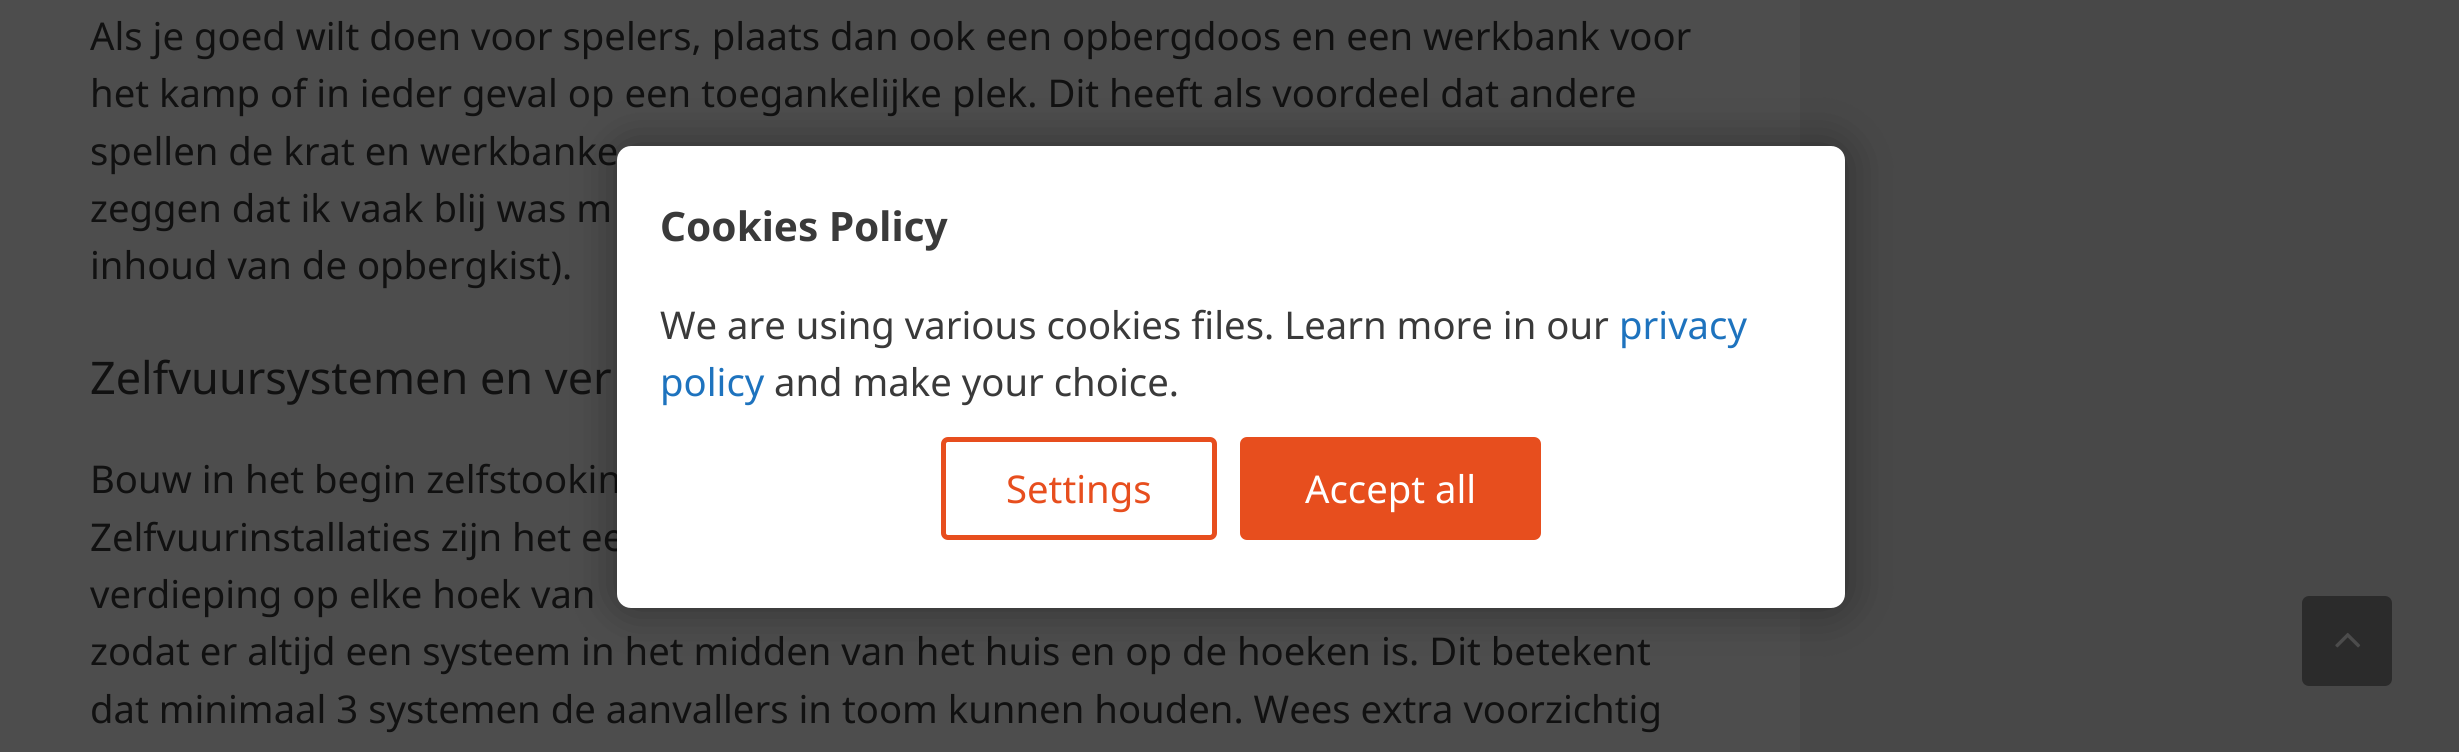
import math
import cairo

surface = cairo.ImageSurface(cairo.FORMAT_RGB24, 2459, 752)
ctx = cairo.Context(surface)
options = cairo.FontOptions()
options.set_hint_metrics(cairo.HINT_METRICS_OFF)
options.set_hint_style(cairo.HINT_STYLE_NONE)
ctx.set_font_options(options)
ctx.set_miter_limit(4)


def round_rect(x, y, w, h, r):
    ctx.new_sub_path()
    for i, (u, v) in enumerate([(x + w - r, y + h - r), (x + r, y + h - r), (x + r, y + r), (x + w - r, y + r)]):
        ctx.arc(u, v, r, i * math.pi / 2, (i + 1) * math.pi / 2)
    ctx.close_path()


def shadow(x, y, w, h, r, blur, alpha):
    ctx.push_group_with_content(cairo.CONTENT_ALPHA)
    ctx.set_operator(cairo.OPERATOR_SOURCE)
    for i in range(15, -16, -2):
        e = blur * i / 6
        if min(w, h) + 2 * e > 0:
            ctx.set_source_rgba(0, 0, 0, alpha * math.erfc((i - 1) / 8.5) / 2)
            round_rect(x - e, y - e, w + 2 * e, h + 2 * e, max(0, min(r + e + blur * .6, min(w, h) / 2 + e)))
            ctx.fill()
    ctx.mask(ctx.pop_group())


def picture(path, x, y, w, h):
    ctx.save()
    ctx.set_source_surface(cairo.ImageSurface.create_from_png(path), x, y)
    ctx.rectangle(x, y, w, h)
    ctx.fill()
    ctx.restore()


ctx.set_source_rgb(0.282, 0.282, 0.282)
ctx.paint()
ctx.set_source_rgb(0.302, 0.302, 0.302)
ctx.rectangle(0, 0, 1800, 752)
ctx.fill()
ctx.select_font_face("Noto Sans")
ctx.set_font_size(38.25)
ctx.set_source_rgb(0.067, 0.067, 0.067)
ctx.move_to(90, 50)
ctx.show_text("Als je goed wilt doen voor spelers, plaats dan ook een opbergdoos en een werkbank voor")
ctx.move_to(90, 107)
ctx.show_text("het kamp of in ieder geval op een toegankelijke plek. Dit heeft als voordeel dat andere")
ctx.move_to(90, 165)
ctx.show_text("spellen de krat en werkbanke")
ctx.move_to(90, 222)
ctx.show_text("zeggen dat ik vaak blij was m")
ctx.move_to(90, 279)
ctx.show_text("inhoud van de opbergkist).")
ctx.set_font_size(45)
ctx.move_to(90, 394)
ctx.show_text("Zelfvuursystemen en ver")
ctx.set_font_size(38.25)
ctx.move_to(90, 493)
ctx.show_text("Bouw in het begin zelfstookin")
ctx.move_to(90, 551)
ctx.show_text("Zelfvuurinstallaties zijn het ee")
ctx.move_to(90, 608)
ctx.show_text("verdieping op elke hoek van")
ctx.move_to(90, 665)
ctx.show_text("zodat er altijd een systeem in het midden van het huis en op de hoeken is. Dit betekent")
ctx.move_to(90, 723)
ctx.show_text("dat minimaal 3 systemen de aanvallers in toom kunnen houden. Wees extra voorzichtig")
ctx.set_source_rgb(0, 0, 0)
shadow(617, 146, 1228, 462, 14, 22.5, 0.4)
ctx.set_source_rgb(1, 1, 1)
round_rect(617, 146, 1228, 462, 14)
ctx.fill()
ctx.select_font_face("Noto Sans", cairo.FONT_SLANT_NORMAL, cairo.FONT_WEIGHT_BOLD)
ctx.set_font_size(40.5)
ctx.set_source_rgb(0.227, 0.227, 0.227)
ctx.move_to(660, 241)
ctx.show_text("Cookies Policy")
ctx.select_font_face("Noto Sans")
ctx.set_font_size(38.25)
ctx.move_to(660, 339)
ctx.show_text("We are using various cookies files. Learn more in our")
ctx.set_source_rgb(0.118, 0.451, 0.745)
ctx.move_to(1619, 339)
ctx.show_text("privacy")
ctx.move_to(660, 396)
ctx.show_text("policy")
ctx.set_source_rgb(0.227, 0.227, 0.227)
ctx.move_to(774, 396)
ctx.show_text("and make your choice.")
round_rect(943.5, 439.5, 271, 98, 4.5)
ctx.set_source_rgb(0.906, 0.306, 0.118)
ctx.set_line_width(5)
ctx.stroke()
ctx.move_to(1006, 503)
ctx.show_text("Settings")
round_rect(1242.5, 439.5, 296, 98, 4.5)
ctx.fill_preserve()
ctx.stroke()
ctx.set_source_rgb(1, 1, 1)
ctx.move_to(1305, 503)
ctx.show_text("Accept all")
ctx.set_source_rgb(0.169, 0.169, 0.169)
round_rect(2302, 596, 90, 90, 7)
ctx.fill()
picture("img1.png", 2335, 632, 26, 16)
surface.write_to_png("page.png")
